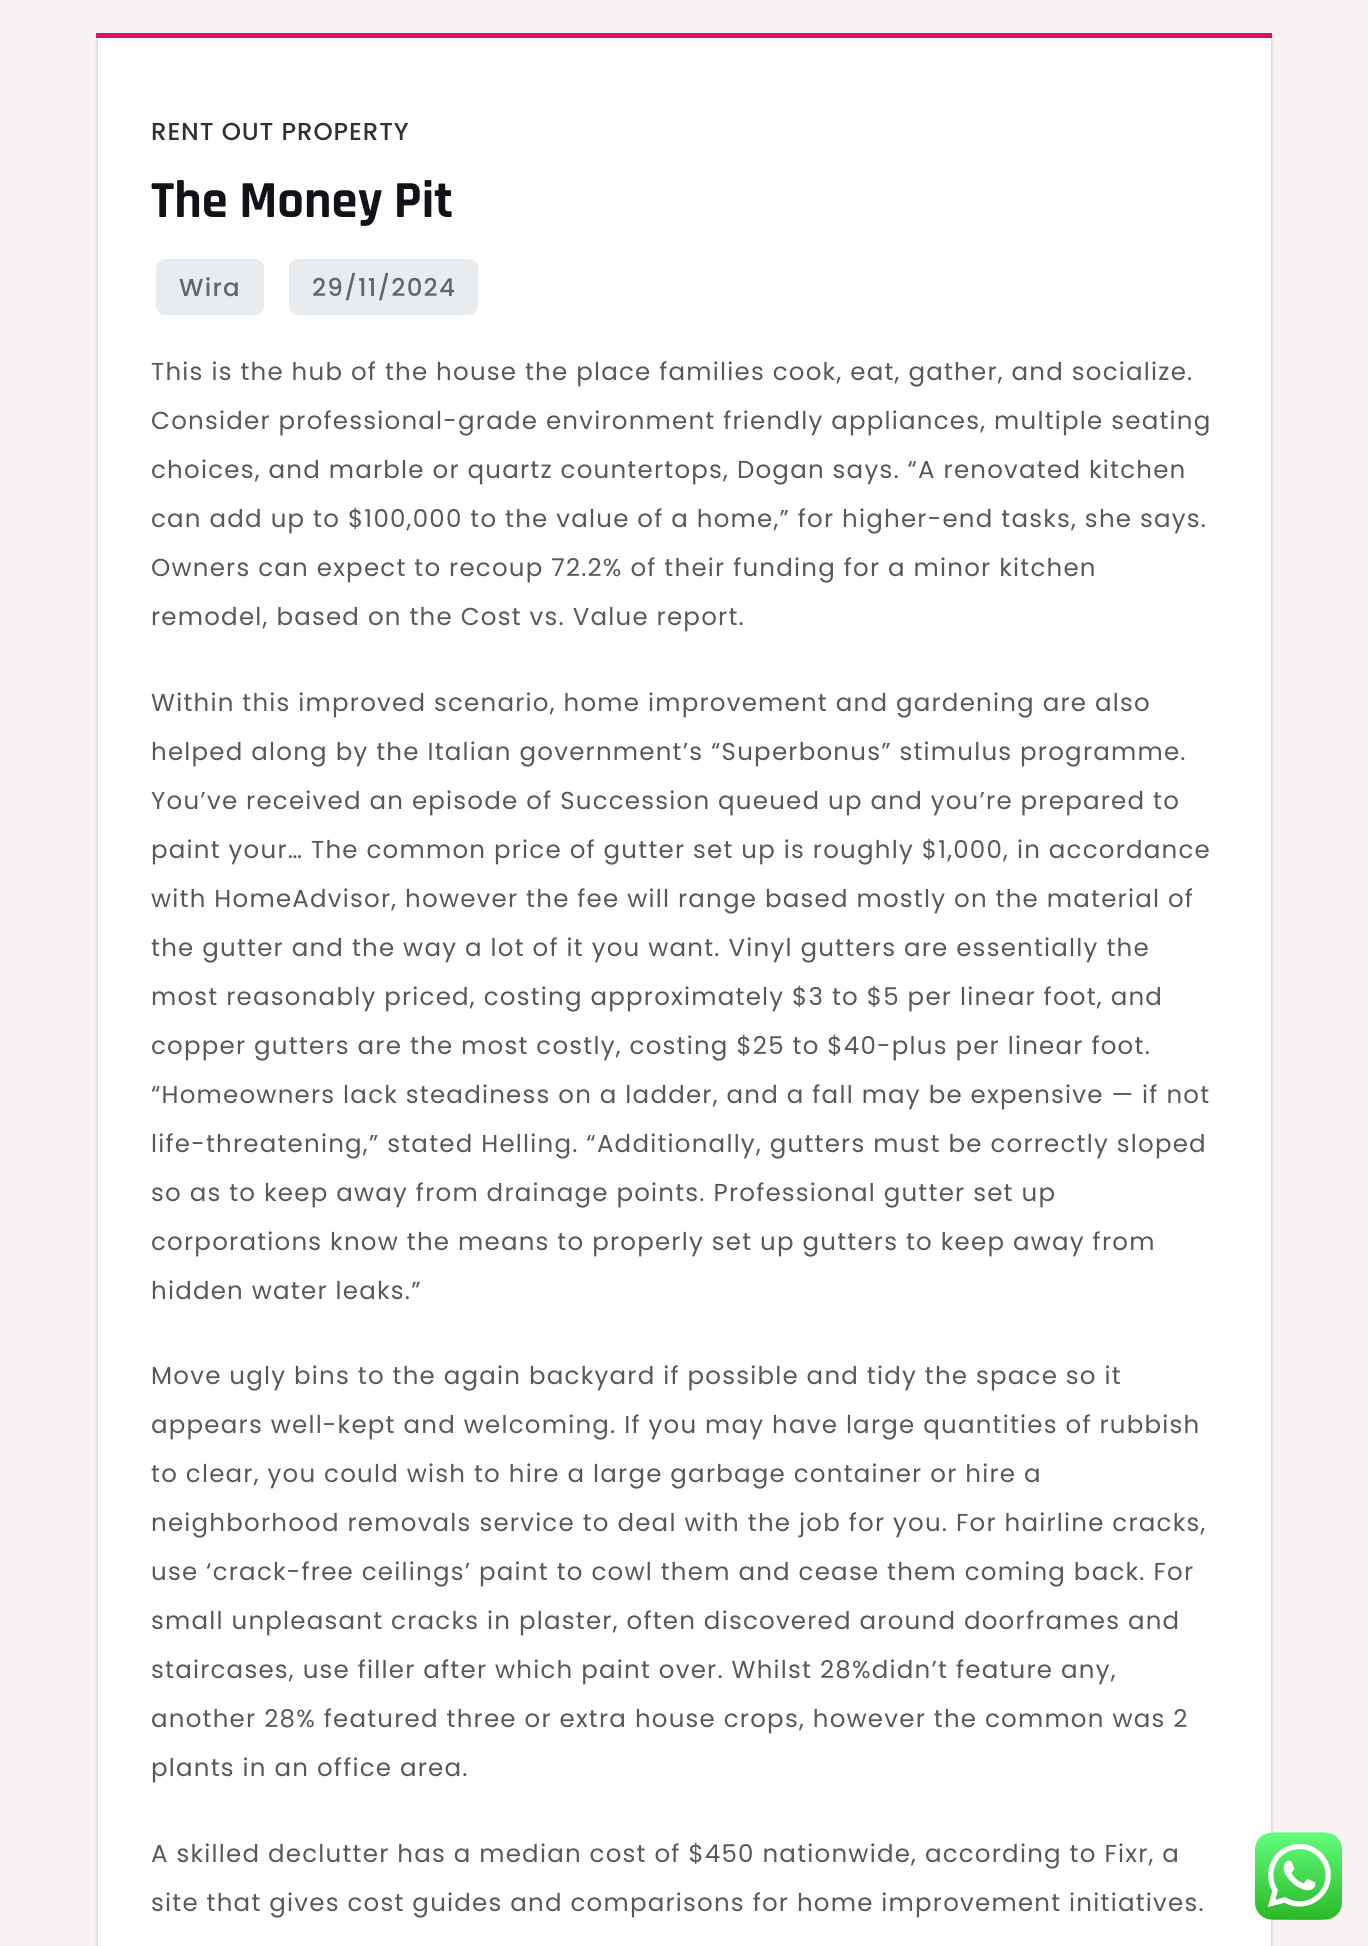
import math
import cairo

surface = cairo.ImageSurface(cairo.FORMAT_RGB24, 1368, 1946)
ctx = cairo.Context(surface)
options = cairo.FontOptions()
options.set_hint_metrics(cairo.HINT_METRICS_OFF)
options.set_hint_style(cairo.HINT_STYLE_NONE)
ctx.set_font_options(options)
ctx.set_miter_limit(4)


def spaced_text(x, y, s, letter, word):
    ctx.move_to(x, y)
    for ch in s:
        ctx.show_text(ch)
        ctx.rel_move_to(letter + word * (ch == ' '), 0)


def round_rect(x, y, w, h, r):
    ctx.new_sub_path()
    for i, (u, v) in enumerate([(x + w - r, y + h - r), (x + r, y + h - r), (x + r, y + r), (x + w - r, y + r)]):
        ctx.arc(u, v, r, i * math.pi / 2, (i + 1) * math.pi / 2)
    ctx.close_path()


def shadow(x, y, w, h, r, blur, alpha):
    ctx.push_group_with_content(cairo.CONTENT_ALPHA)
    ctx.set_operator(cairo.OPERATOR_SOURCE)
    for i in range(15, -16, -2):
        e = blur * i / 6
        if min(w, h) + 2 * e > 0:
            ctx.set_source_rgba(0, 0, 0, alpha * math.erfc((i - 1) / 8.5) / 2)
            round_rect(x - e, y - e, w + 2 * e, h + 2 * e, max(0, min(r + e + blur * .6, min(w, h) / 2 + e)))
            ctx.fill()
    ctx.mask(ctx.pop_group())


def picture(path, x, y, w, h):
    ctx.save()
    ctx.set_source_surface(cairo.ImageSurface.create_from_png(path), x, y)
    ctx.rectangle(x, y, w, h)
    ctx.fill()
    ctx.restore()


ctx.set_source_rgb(0.973, 0.953, 0.957)
ctx.paint()
ctx.set_source_rgb(0, 0, 0)
shadow(98, 39, 1173, 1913, 0, 2, 0.18)
shadow(98, 35, 1173, 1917, 0, 2, 0.1)
ctx.set_source_rgb(1, 1, 1)
ctx.rectangle(98, 38, 1173, 1908)
ctx.fill()
ctx.set_source_rgb(0.855, 0.071, 0.416)
ctx.rectangle(96, 33, 1176, 5)
ctx.fill()
ctx.select_font_face("Poppins Medium")
ctx.set_font_size(24.5)
ctx.set_source_rgb(0.192, 0.192, 0.192)
spaced_text(151, 140, "RENT OUT PROPERTY", 0.9, 0)
ctx.select_font_face("Rajdhani", cairo.FONT_SLANT_NORMAL, cairo.FONT_WEIGHT_BOLD)
ctx.set_font_size(52.5)
ctx.set_source_rgb(0.071, 0.078, 0.094)
ctx.move_to(151, 217)
ctx.show_text("The Money Pit")
ctx.set_source_rgb(0.914, 0.925, 0.937)
round_rect(156, 259, 108, 56, 9)
ctx.fill()
ctx.select_font_face("Poppins Medium")
ctx.set_font_size(24.5)
ctx.set_source_rgb(0.4, 0.4, 0.4)
spaced_text(179, 296, "Wira", 1.22, 0)
ctx.set_source_rgb(0.914, 0.925, 0.937)
round_rect(289, 259, 189, 56, 9)
ctx.fill()
ctx.set_source_rgb(0.4, 0.4, 0.4)
spaced_text(312, 296, "29/11/2024", 1.22, 0)
ctx.select_font_face("Poppins")
ctx.set_source_rgb(0.337, 0.345, 0.349)
spaced_text(151, 380, "This is the hub of the house the place families cook, eat, gather, and socialize.", 1.22, 0)
spaced_text(151, 429, "Consider professional-grade environment friendly appliances, multiple seating", 1.22, 0)
spaced_text(151, 478, "choices, and marble or quartz countertops, Dogan says. “A renovated kitchen", 1.22, 0)
spaced_text(151, 527, "can add up to $100,000 to the value of a home,” for higher-end tasks, she says.", 1.22, 0)
spaced_text(151, 576, "Owners can expect to recoup 72.2% of their funding for a minor kitchen", 1.22, 0)
spaced_text(151, 625, "remodel, based on the Cost vs. Value report.", 1.22, 0)
spaced_text(151, 711, "Within this improved scenario, home improvement and gardening are also", 1.22, 0)
spaced_text(151, 760, "helped along by the Italian government’s “Superbonus” stimulus programme.", 1.22, 0)
spaced_text(151, 809, "You’ve received an episode of Succession queued up and you’re prepared to", 1.22, 0)
spaced_text(151, 858, "paint your… The common price of gutter set up is roughly $1,000, in accordance", 1.22, 0)
spaced_text(151, 907, "with HomeAdvisor, however the fee will range based mostly on the material of", 1.22, 0)
spaced_text(151, 956, "the gutter and the way a lot of it you want. Vinyl gutters are essentially the", 1.22, 0)
spaced_text(151, 1005, "most reasonably priced, costing approximately $3 to $5 per linear foot, and", 1.22, 0)
spaced_text(151, 1054, "copper gutters are the most costly, costing $25 to $40-plus per linear foot.", 1.22, 0)
spaced_text(151, 1103, "“Homeowners lack steadiness on a ladder, and a fall may be expensive — if not", 1.22, 0)
spaced_text(151, 1152, "life-threatening,” stated Helling. “Additionally, gutters must be correctly sloped", 1.22, 0)
spaced_text(151, 1201, "so as to keep away from drainage points. Professional gutter set up", 1.22, 0)
spaced_text(151, 1250, "corporations know the means to properly set up gutters to keep away from", 1.22, 0)
spaced_text(151, 1299, "hidden water leaks.”", 1.22, 0)
spaced_text(151, 1384, "Move ugly bins to the again backyard if possible and tidy the space so it", 1.22, 0)
spaced_text(151, 1433, "appears well-kept and welcoming. If you may have large quantities of rubbish", 1.22, 0)
spaced_text(151, 1482, "to clear, you could wish to hire a large garbage container or hire a", 1.22, 0)
spaced_text(151, 1531, "neighborhood removals service to deal with the job for you. For hairline cracks,", 1.22, 0)
spaced_text(151, 1580, "use ‘crack-free ceilings’ paint to cowl them and cease them coming back. For", 1.22, 0)
spaced_text(151, 1629, "small unpleasant cracks in plaster, often discovered around doorframes and", 1.22, 0)
spaced_text(151, 1678, "staircases, use filler after which paint over. Whilst 28%didn’t feature any,", 1.22, 0)
spaced_text(151, 1727, "another 28% featured three or extra house crops, however the common was 2", 1.22, 0)
spaced_text(151, 1776, "plants in an office area.", 1.22, 0)
spaced_text(151, 1862, "A skilled declutter has a median cost of $450 nationwide, according to Fixr, a", 1.22, 0)
spaced_text(151, 1911, "site that gives cost guides and comparisons for home improvement initiatives.", 1.22, 0)
picture("img1.png", 1255, 1832, 87, 88)
surface.write_to_png("page.png")
